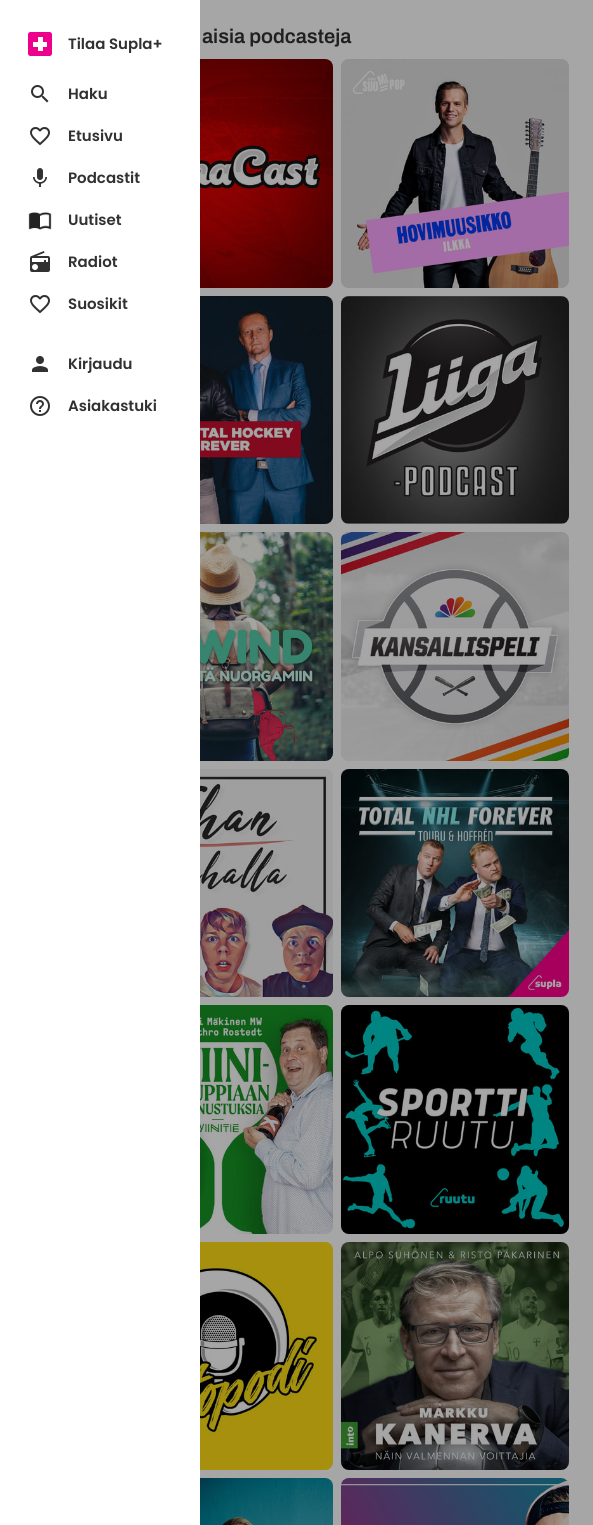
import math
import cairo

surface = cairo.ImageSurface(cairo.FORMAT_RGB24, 593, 1525)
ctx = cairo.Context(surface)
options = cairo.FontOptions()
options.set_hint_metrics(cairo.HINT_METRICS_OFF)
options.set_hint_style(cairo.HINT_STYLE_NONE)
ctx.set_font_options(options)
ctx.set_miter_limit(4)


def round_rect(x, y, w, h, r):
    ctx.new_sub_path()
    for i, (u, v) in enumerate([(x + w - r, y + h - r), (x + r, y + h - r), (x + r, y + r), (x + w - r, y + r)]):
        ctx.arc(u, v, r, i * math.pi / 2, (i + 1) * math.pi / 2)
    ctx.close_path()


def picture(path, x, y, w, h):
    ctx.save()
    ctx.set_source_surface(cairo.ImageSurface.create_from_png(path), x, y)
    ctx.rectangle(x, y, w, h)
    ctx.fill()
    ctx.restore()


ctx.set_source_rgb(0.651, 0.651, 0.651)
ctx.paint()
ctx.set_source_rgb(0.588, 0.588, 0.588)
round_rect(104, 59, 229, 229, 8)
ctx.fill()
round_rect(104, 296, 229, 228, 8)
ctx.fill()
round_rect(104, 532, 229, 229, 8)
ctx.fill()
round_rect(104, 769, 229, 228, 8)
ctx.fill()
round_rect(104, 1005, 229, 229, 8)
ctx.fill()
round_rect(104, 1242, 229, 228, 8)
ctx.fill()
ctx.set_source_rgb(1, 1, 1)
ctx.rectangle(0, 0, 200, 1525)
ctx.fill()
ctx.set_source_rgb(0.925, 0, 0.549)
round_rect(28, 32, 24, 24, 2.5)
ctx.fill()
ctx.set_source_rgb(1, 1, 1)
ctx.rectangle(38, 37, 5, 14)
ctx.fill()
ctx.rectangle(33, 42, 14, 5)
ctx.fill()
ctx.select_font_face("Poppins SemiBold")
ctx.set_font_size(15)
ctx.set_source_rgb(0.192, 0.192, 0.192)
ctx.move_to(68, 49)
ctx.show_text("Tilaa Supla+")
picture("img1.png", 31, 85, 18, 18)
ctx.move_to(68, 99)
ctx.show_text("Haku")
picture("img2.png", 30, 127, 20, 19)
ctx.move_to(68, 141)
ctx.show_text("Etusivu")
picture("img3.png", 33, 168, 14, 19)
ctx.move_to(68, 183)
ctx.show_text("Podcastit")
picture("img4.png", 28, 212, 24, 18)
ctx.move_to(68, 225)
ctx.show_text("Uutiset")
picture("img5.png", 30, 251, 20, 21)
ctx.move_to(68, 267)
ctx.show_text("Radiot")
picture("img2.png", 30, 295, 20, 19)
ctx.move_to(68, 309)
ctx.show_text("Suosikit")
picture("img6.png", 32, 356, 16, 16)
ctx.move_to(68, 369)
ctx.show_text("Kirjaudu")
picture("img7.png", 30, 396, 20, 20)
ctx.move_to(68, 411)
ctx.show_text("Asiakastuki")
ctx.select_font_face("Archivo SemiBold")
ctx.set_font_size(20)
ctx.set_source_rgb(0.125, 0.125, 0.125)
ctx.move_to(202, 43)
ctx.show_text("aisia podcasteja")
picture("img8.png", 200, 59, 133, 229)
ctx.set_source_rgb(0.588, 0.588, 0.588)
round_rect(341, 59, 228, 229, 8)
ctx.fill()
picture("img9.png", 341, 59, 228, 229)
picture("img10.png", 200, 296, 133, 228)
round_rect(341, 296, 228, 228, 8)
ctx.fill()
picture("img11.png", 341, 296, 228, 228)
picture("img12.png", 200, 532, 133, 229)
round_rect(341, 532, 228, 229, 8)
ctx.fill()
picture("img13.png", 341, 532, 228, 229)
picture("img14.png", 200, 769, 133, 228)
round_rect(341, 769, 228, 228, 8)
ctx.fill()
picture("img15.png", 341, 769, 228, 228)
picture("img16.png", 200, 1005, 133, 229)
round_rect(341, 1005, 228, 229, 8)
ctx.fill()
picture("img17.png", 341, 1005, 228, 229)
picture("img18.png", 200, 1242, 133, 228)
round_rect(341, 1242, 228, 228, 8)
ctx.fill()
picture("img19.png", 341, 1242, 228, 228)
picture("img20.png", 200, 1478, 133, 47)
picture("img21.png", 341, 1478, 228, 47)
surface.write_to_png("page.png")
